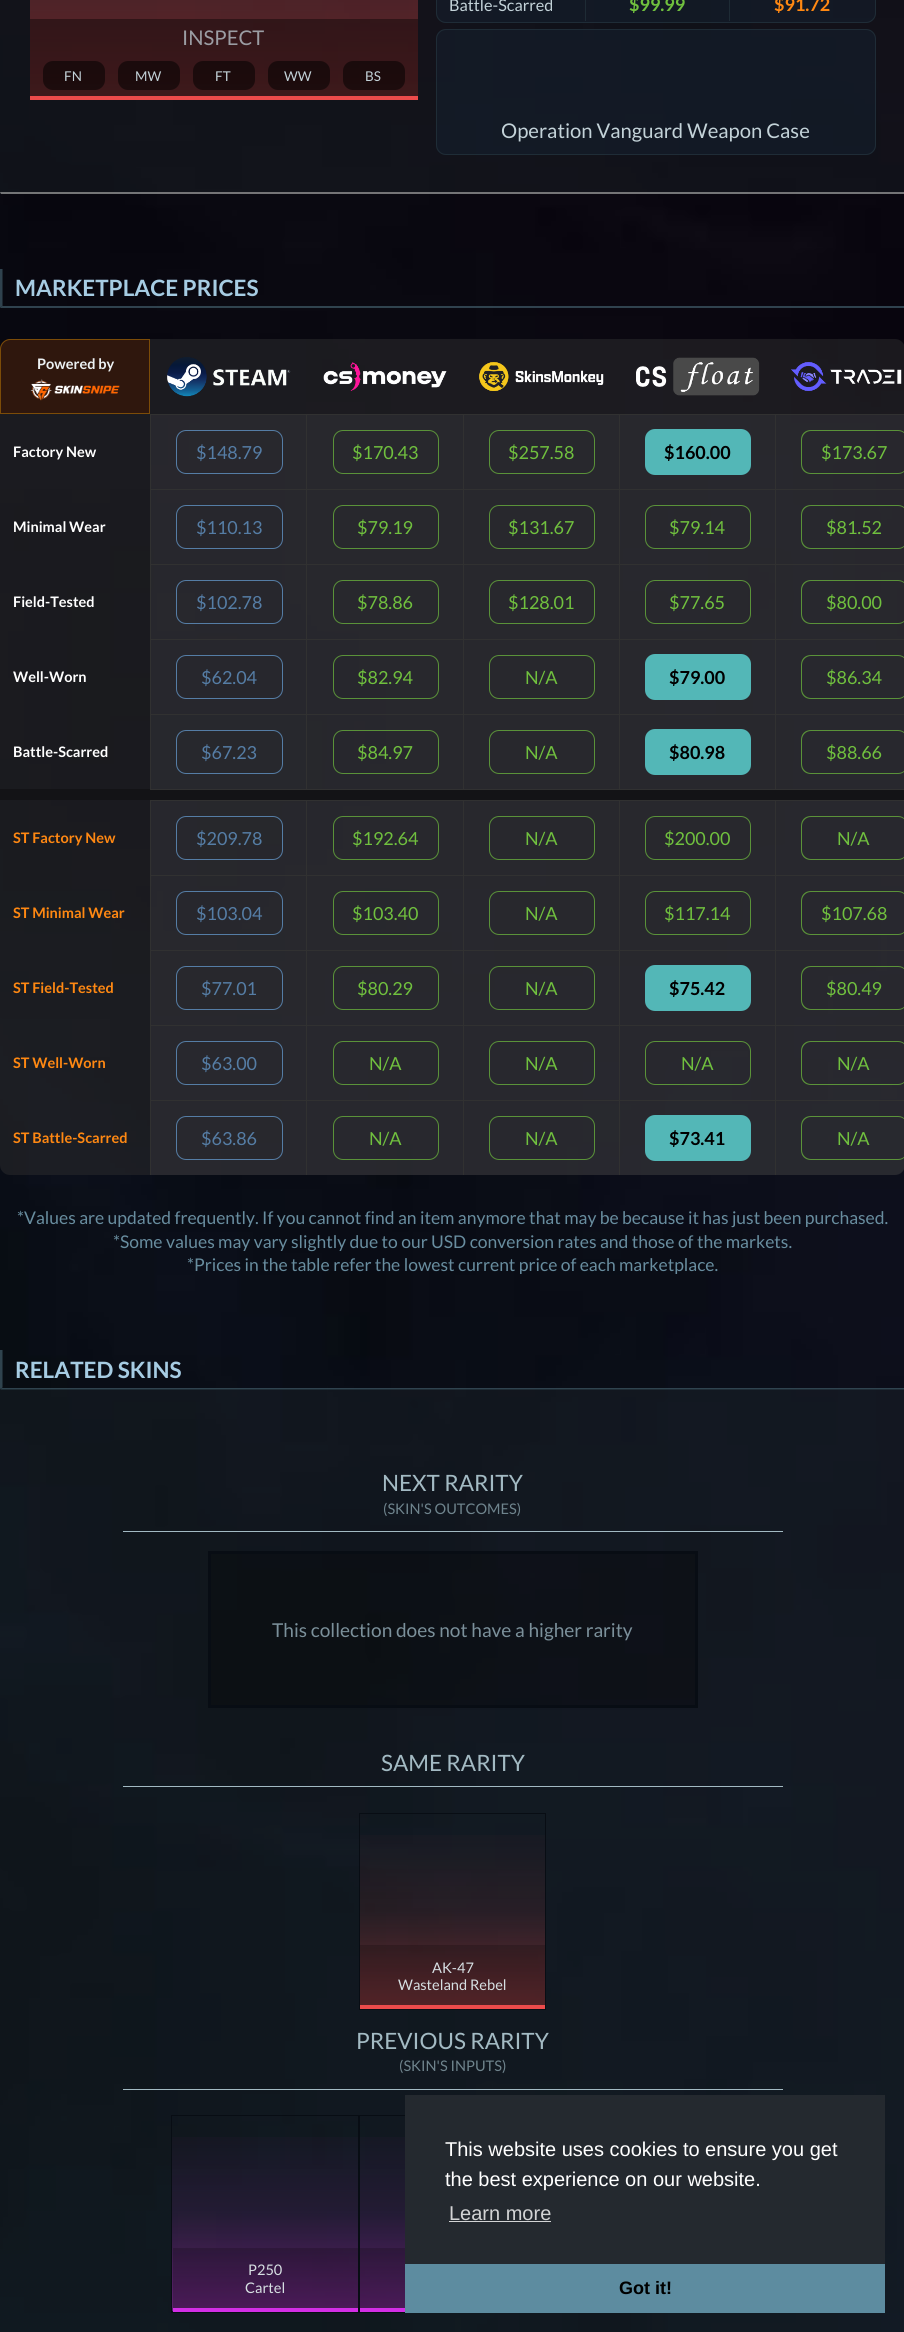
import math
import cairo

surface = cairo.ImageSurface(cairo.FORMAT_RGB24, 904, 2332)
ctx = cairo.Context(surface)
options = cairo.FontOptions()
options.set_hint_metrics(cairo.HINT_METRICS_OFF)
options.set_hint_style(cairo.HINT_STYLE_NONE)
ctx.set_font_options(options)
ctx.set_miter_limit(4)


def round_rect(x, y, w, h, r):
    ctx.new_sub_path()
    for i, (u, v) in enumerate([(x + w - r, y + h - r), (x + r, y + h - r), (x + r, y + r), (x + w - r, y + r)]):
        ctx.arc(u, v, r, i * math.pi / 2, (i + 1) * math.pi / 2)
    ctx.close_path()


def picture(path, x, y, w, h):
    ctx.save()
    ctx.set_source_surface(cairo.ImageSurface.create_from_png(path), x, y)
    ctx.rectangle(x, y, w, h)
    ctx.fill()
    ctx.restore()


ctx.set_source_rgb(1, 1, 1)
ctx.paint()
picture("img1.png", 0, 0, 904, 2332)
ctx.set_source_rgba(0.129, 0.157, 0.188, 0.35)
round_rect(0, -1, 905, 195, 1)
ctx.fill()
ctx.set_source_rgba(0.592, 0.592, 0.592, 0.74)
ctx.new_path()
ctx.move_to(904, 194)
ctx.line_to(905, 192)
ctx.line_to(0, 192)
ctx.line_to(1, 194)
ctx.close_path()
ctx.fill()
gradient = cairo.LinearGradient(224, -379, 224, 100)
gradient.add_color_stop_rgba(0, 0.922, 0.294, 0.294, 0)
gradient.add_color_stop_rgba(0.5, 0.922, 0.294, 0.294, 0.1)
gradient.add_color_stop_rgba(1, 0.922, 0.294, 0.294, 0.4)
ctx.set_source(gradient)
ctx.rectangle(30, 0, 388, 96)
ctx.fill()
ctx.set_source_rgba(0, 0, 0, 0.4)
ctx.rectangle(30, 19, 388, 77)
ctx.fill()
ctx.select_font_face("Lato")
ctx.set_font_size(20.25)
ctx.set_source_rgb(0.608, 0.616, 0.639)
ctx.move_to(182, 45)
ctx.show_text("INSPECT")
ctx.set_source_rgba(0, 0, 0, 0.53)
round_rect(43, 61, 62, 29, 10)
ctx.fill()
ctx.set_font_size(13.5)
ctx.set_source_rgb(0.765, 0.824, 0.847)
ctx.move_to(64, 81)
ctx.show_text("FN")
ctx.set_source_rgba(0, 0, 0, 0.53)
round_rect(118, 61, 62, 29, 10)
ctx.fill()
ctx.set_source_rgb(0.765, 0.824, 0.847)
ctx.move_to(135, 81)
ctx.show_text("MW")
ctx.set_source_rgba(0, 0, 0, 0.53)
round_rect(193, 61, 62, 29, 10)
ctx.fill()
ctx.set_source_rgb(0.765, 0.824, 0.847)
ctx.move_to(215, 81)
ctx.show_text("FT")
ctx.set_source_rgba(0, 0, 0, 0.53)
round_rect(268, 61, 62, 29, 10)
ctx.fill()
ctx.set_source_rgb(0.765, 0.824, 0.847)
ctx.move_to(284, 81)
ctx.show_text("WW")
ctx.set_source_rgba(0, 0, 0, 0.53)
round_rect(343, 61, 62, 29, 10)
ctx.fill()
ctx.set_source_rgb(0.765, 0.824, 0.847)
ctx.move_to(365, 81)
ctx.show_text("BS")
ctx.set_source_rgb(0.922, 0.294, 0.294)
ctx.rectangle(30, 96, 388, 4)
ctx.fill()
ctx.set_source_rgba(0.094, 0.157, 0.227, 0.37)
round_rect(436, -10, 440, 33, 10)
ctx.fill()
round_rect(436.5, -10.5, 439, 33, 9.5)
ctx.set_source_rgba(0.141, 0.204, 0.239, 0.74)
ctx.set_line_width(1)
ctx.stroke()
ctx.set_source_rgb(0.118, 0.169, 0.208)
ctx.rectangle(585, 0, 1, 21)
ctx.fill()
ctx.set_font_size(16.25)
ctx.set_source_rgb(0.765, 0.824, 0.847)
ctx.move_to(449, 11)
ctx.show_text("Battle-Scarred")
ctx.set_source_rgb(0.118, 0.169, 0.208)
ctx.rectangle(729, 0, 1, 21)
ctx.fill()
ctx.select_font_face("Lato", cairo.FONT_SLANT_NORMAL, cairo.FONT_WEIGHT_BOLD)
ctx.set_font_size(18)
ctx.set_source_rgb(0.439, 0.753, 0.243)
ctx.move_to(629, 11)
ctx.show_text("$99.99")
ctx.set_source_rgb(1, 0.533, 0.071)
ctx.move_to(774, 11)
ctx.show_text("$91.72")
ctx.set_source_rgba(0.094, 0.157, 0.227, 0.37)
round_rect(436, 29, 440, 126, 10)
ctx.fill()
round_rect(436.5, 29.5, 439, 125, 9.5)
ctx.set_source_rgba(0.141, 0.204, 0.239, 0.74)
ctx.stroke()
ctx.select_font_face("Lato")
ctx.set_font_size(20.25)
ctx.set_source_rgb(0.765, 0.824, 0.847)
ctx.move_to(501, 138)
ctx.show_text("Operation Vanguard Weapon Case")
ctx.set_source_rgba(0.22, 0.31, 0.361, 0.82)
ctx.new_path()
ctx.move_to(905, 308)
ctx.line_to(0, 308)
ctx.line_to(2, 306)
ctx.line_to(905, 306)
ctx.close_path()
ctx.fill()
ctx.new_path()
ctx.move_to(0, 307.5)
ctx.line_to(0, 269)
ctx.line_to(2.5, 269)
ctx.line_to(2.5, 306)
ctx.close_path()
ctx.fill()
ctx.select_font_face("Lato", cairo.FONT_SLANT_NORMAL, cairo.FONT_WEIGHT_BOLD)
ctx.set_font_size(22.5)
ctx.set_source_rgb(0.651, 0.8, 0.89)
ctx.move_to(15, 296)
ctx.show_text("MARKETPLACE PRICES")
ctx.set_source_rgb(0.184, 0.09, 0.051)
ctx.new_path()
ctx.move_to(10, 339)
ctx.line_to(150, 339)
ctx.line_to(150, 414)
ctx.line_to(0, 414)
ctx.line_to(0, 349)
ctx.curve_to(0, 343.5, 4.5, 339, 10, 339)
ctx.close_path()
ctx.fill()
ctx.new_path()
ctx.move_to(10, 339.5)
ctx.line_to(149.5, 339.5)
ctx.line_to(149.5, 413.5)
ctx.line_to(0.5, 413.5)
ctx.line_to(0.5, 349)
ctx.curve_to(0.5, 344, 5, 339.5, 10, 339.5)
ctx.close_path()
ctx.set_source_rgba(1, 0.647, 0, 0.37)
ctx.stroke()
ctx.set_font_size(14.5)
ctx.set_source_rgb(0.925, 0.945, 0.953)
ctx.move_to(37, 369)
ctx.show_text("Powered by")
picture("img2.png", 30, 379, 90, 22)
ctx.set_source_rgb(0.106, 0.106, 0.125)
ctx.rectangle(0, 414, 150, 75)
ctx.fill()
ctx.set_source_rgb(1, 1, 1)
ctx.move_to(13, 457)
ctx.show_text("Factory New")
ctx.set_source_rgba(0.165, 0.165, 0.176, 0.55)
ctx.rectangle(0, 489, 150, 75)
ctx.fill()
ctx.set_source_rgb(1, 1, 1)
ctx.move_to(13, 532)
ctx.show_text("Minimal Wear")
ctx.set_source_rgba(0.165, 0.165, 0.176, 0.55)
ctx.rectangle(0, 564, 150, 75)
ctx.fill()
ctx.set_source_rgb(1, 1, 1)
ctx.move_to(13, 607)
ctx.show_text("Field-Tested")
ctx.set_source_rgba(0.165, 0.165, 0.176, 0.55)
ctx.rectangle(0, 639, 150, 75)
ctx.fill()
ctx.set_source_rgb(1, 1, 1)
ctx.move_to(13, 682)
ctx.show_text("Well-Worn")
ctx.set_source_rgba(0.165, 0.165, 0.176, 0.55)
ctx.rectangle(0, 714, 150, 75)
ctx.fill()
ctx.set_source_rgb(1, 1, 1)
ctx.move_to(13, 757)
ctx.show_text("Battle-Scarred")
ctx.set_source_rgb(0.078, 0.078, 0.086)
ctx.rectangle(0, 789, 150, 11)
ctx.fill()
ctx.set_source_rgba(0.165, 0.165, 0.176, 0.55)
ctx.rectangle(0, 800, 150, 75)
ctx.fill()
ctx.set_source_rgb(1, 0.533, 0.071)
ctx.move_to(13, 843)
ctx.show_text("ST Factory New")
ctx.set_source_rgba(0.165, 0.165, 0.176, 0.55)
ctx.rectangle(0, 875, 150, 75)
ctx.fill()
ctx.set_source_rgb(1, 0.533, 0.071)
ctx.move_to(13, 918)
ctx.show_text("ST Minimal Wear")
ctx.set_source_rgba(0.165, 0.165, 0.176, 0.55)
ctx.rectangle(0, 950, 150, 75)
ctx.fill()
ctx.set_source_rgb(1, 0.533, 0.071)
ctx.move_to(13, 993)
ctx.show_text("ST Field-Tested")
ctx.set_source_rgba(0.165, 0.165, 0.176, 0.55)
ctx.rectangle(0, 1025, 150, 75)
ctx.fill()
ctx.set_source_rgb(1, 0.533, 0.071)
ctx.move_to(13, 1068)
ctx.show_text("ST Well-Worn")
ctx.set_source_rgba(0.165, 0.165, 0.176, 0.55)
ctx.new_path()
ctx.move_to(0, 1100)
ctx.line_to(150, 1100)
ctx.line_to(150, 1175)
ctx.line_to(10, 1175)
ctx.curve_to(4.5, 1175, 0, 1170.5, 0, 1165)
ctx.close_path()
ctx.fill()
ctx.set_source_rgb(1, 0.533, 0.071)
ctx.move_to(13, 1143)
ctx.show_text("ST Battle-Scarred")
ctx.set_source_rgb(0.106, 0.106, 0.125)
ctx.rectangle(150, 339, 156, 75)
ctx.fill()
picture("img3.png", 167, 357, 124, 40)
ctx.set_source_rgba(0.184, 0.184, 0.204, 0.81)
ctx.rectangle(151, 415, 155, 74)
ctx.fill()
ctx.set_source_rgb(0.192, 0.192, 0.192)
ctx.rectangle(150, 414, 754, 1)
ctx.fill()
ctx.rectangle(150, 414, 1, 75)
ctx.fill()
round_rect(176.5, 430.5, 106, 43, 9.5)
ctx.set_source_rgb(0.333, 0.49, 0.647)
ctx.stroke()
ctx.select_font_face("Lato")
ctx.set_font_size(18)
ctx.move_to(196, 459)
ctx.show_text("$148.79")
ctx.set_source_rgba(0.184, 0.184, 0.204, 0.81)
ctx.rectangle(151, 490, 155, 74)
ctx.fill()
ctx.set_source_rgb(0.192, 0.192, 0.192)
ctx.rectangle(150, 489, 754, 1)
ctx.fill()
ctx.rectangle(150, 489, 1, 75)
ctx.fill()
round_rect(176.5, 505.5, 106, 43, 9.5)
ctx.set_source_rgb(0.333, 0.49, 0.647)
ctx.stroke()
ctx.move_to(196, 534)
ctx.show_text("$110.13")
ctx.set_source_rgba(0.184, 0.184, 0.204, 0.81)
ctx.rectangle(151, 565, 155, 74)
ctx.fill()
ctx.set_source_rgb(0.192, 0.192, 0.192)
ctx.rectangle(150, 564, 754, 1)
ctx.fill()
ctx.rectangle(150, 564, 1, 75)
ctx.fill()
round_rect(176.5, 580.5, 106, 43, 9.5)
ctx.set_source_rgb(0.333, 0.49, 0.647)
ctx.stroke()
ctx.move_to(196, 609)
ctx.show_text("$102.78")
ctx.set_source_rgb(0.153, 0.153, 0.176)
ctx.rectangle(151, 640, 155, 74)
ctx.fill()
ctx.set_source_rgb(0.192, 0.192, 0.192)
ctx.rectangle(150, 639, 754, 1)
ctx.fill()
ctx.rectangle(150, 639, 1, 75)
ctx.fill()
round_rect(176.5, 655.5, 106, 43, 9.5)
ctx.set_source_rgb(0.333, 0.49, 0.647)
ctx.stroke()
ctx.move_to(201, 684)
ctx.show_text("$62.04")
ctx.set_source_rgb(0.153, 0.157, 0.176)
ctx.rectangle(151, 715, 155, 74)
ctx.fill()
ctx.set_source_rgb(0.192, 0.192, 0.192)
ctx.rectangle(150, 714, 754, 1)
ctx.fill()
ctx.rectangle(150, 714, 1, 75)
ctx.fill()
round_rect(176.5, 730.5, 106, 43, 9.5)
ctx.set_source_rgb(0.333, 0.49, 0.647)
ctx.stroke()
ctx.move_to(201, 759)
ctx.show_text("$67.23")
ctx.set_source_rgb(0.078, 0.078, 0.086)
ctx.rectangle(150, 790, 754, 10)
ctx.fill()
ctx.set_source_rgb(0.192, 0.192, 0.192)
ctx.rectangle(150, 789, 754, 1)
ctx.fill()
ctx.set_source_rgba(0.184, 0.184, 0.204, 0.81)
ctx.rectangle(151, 801, 155, 74)
ctx.fill()
ctx.set_source_rgb(0.192, 0.192, 0.192)
ctx.rectangle(150, 800, 754, 1)
ctx.fill()
ctx.rectangle(150, 800, 1, 75)
ctx.fill()
round_rect(176.5, 816.5, 106, 43, 9.5)
ctx.set_source_rgb(0.333, 0.49, 0.647)
ctx.stroke()
ctx.move_to(196, 845)
ctx.show_text("$209.78")
ctx.set_source_rgba(0.184, 0.184, 0.204, 0.81)
ctx.rectangle(151, 876, 155, 74)
ctx.fill()
ctx.set_source_rgb(0.192, 0.192, 0.192)
ctx.rectangle(150, 875, 754, 1)
ctx.fill()
ctx.rectangle(150, 875, 1, 75)
ctx.fill()
round_rect(176.5, 891.5, 106, 43, 9.5)
ctx.set_source_rgb(0.333, 0.49, 0.647)
ctx.stroke()
ctx.move_to(196, 920)
ctx.show_text("$103.04")
ctx.set_source_rgba(0.184, 0.184, 0.204, 0.81)
ctx.rectangle(151, 951, 155, 74)
ctx.fill()
ctx.set_source_rgb(0.192, 0.192, 0.192)
ctx.rectangle(150, 950, 754, 1)
ctx.fill()
ctx.rectangle(150, 950, 1, 75)
ctx.fill()
round_rect(176.5, 966.5, 106, 43, 9.5)
ctx.set_source_rgb(0.333, 0.49, 0.647)
ctx.stroke()
ctx.move_to(201, 995)
ctx.show_text("$77.01")
ctx.set_source_rgb(0.157, 0.157, 0.18)
ctx.rectangle(151, 1026, 155, 74)
ctx.fill()
ctx.set_source_rgb(0.192, 0.192, 0.192)
ctx.rectangle(150, 1025, 754, 1)
ctx.fill()
ctx.rectangle(150, 1025, 1, 75)
ctx.fill()
round_rect(176.5, 1041.5, 106, 43, 9.5)
ctx.set_source_rgb(0.333, 0.49, 0.647)
ctx.stroke()
ctx.move_to(201, 1070)
ctx.show_text("$63.00")
ctx.set_source_rgba(0.184, 0.184, 0.204, 0.81)
ctx.rectangle(151, 1101, 155, 74)
ctx.fill()
ctx.set_source_rgb(0.192, 0.192, 0.192)
ctx.rectangle(150, 1100, 625, 1)
ctx.fill()
ctx.rectangle(150, 1100, 1, 75)
ctx.fill()
round_rect(176.5, 1116.5, 106, 43, 9.5)
ctx.set_source_rgb(0.333, 0.49, 0.647)
ctx.stroke()
ctx.move_to(201, 1145)
ctx.show_text("$63.86")
ctx.set_source_rgba(0.165, 0.165, 0.176, 0.55)
ctx.rectangle(306, 339, 157, 75)
ctx.fill()
picture("img4.png", 323, 362, 124, 29)
ctx.set_source_rgb(0.157, 0.157, 0.176)
ctx.rectangle(307, 415, 156, 74)
ctx.fill()
ctx.set_source_rgb(0.192, 0.192, 0.192)
ctx.rectangle(306, 414, 1, 375)
ctx.fill()
round_rect(333.5, 430.5, 105, 43, 9.5)
ctx.set_source_rgb(0.353, 0.573, 0.224)
ctx.stroke()
ctx.set_source_rgb(0.439, 0.753, 0.243)
ctx.move_to(352, 459)
ctx.show_text("$170.43")
ctx.set_source_rgba(0.184, 0.184, 0.204, 0.81)
ctx.rectangle(307, 490, 156, 74)
ctx.fill()
round_rect(333.5, 505.5, 105, 43, 9.5)
ctx.set_source_rgb(0.353, 0.573, 0.224)
ctx.stroke()
ctx.set_source_rgb(0.439, 0.753, 0.243)
ctx.move_to(357, 534)
ctx.show_text("$79.19")
ctx.set_source_rgba(0.184, 0.184, 0.204, 0.81)
ctx.rectangle(307, 565, 156, 74)
ctx.fill()
round_rect(333.5, 580.5, 105, 43, 9.5)
ctx.set_source_rgb(0.353, 0.573, 0.224)
ctx.stroke()
ctx.set_source_rgb(0.439, 0.753, 0.243)
ctx.move_to(357, 609)
ctx.show_text("$78.86")
ctx.set_source_rgba(0.184, 0.184, 0.204, 0.81)
ctx.rectangle(307, 640, 156, 74)
ctx.fill()
round_rect(333.5, 655.5, 105, 43, 9.5)
ctx.set_source_rgb(0.353, 0.573, 0.224)
ctx.stroke()
ctx.set_source_rgb(0.439, 0.753, 0.243)
ctx.move_to(357, 684)
ctx.show_text("$82.94")
ctx.set_source_rgba(0.184, 0.184, 0.204, 0.81)
ctx.rectangle(307, 715, 156, 74)
ctx.fill()
round_rect(333.5, 730.5, 105, 43, 9.5)
ctx.set_source_rgb(0.353, 0.573, 0.224)
ctx.stroke()
ctx.set_source_rgb(0.439, 0.753, 0.243)
ctx.move_to(357, 759)
ctx.show_text("$84.97")
ctx.set_source_rgba(0.184, 0.184, 0.204, 0.81)
ctx.rectangle(307, 801, 156, 74)
ctx.fill()
ctx.set_source_rgb(0.192, 0.192, 0.192)
ctx.rectangle(306, 800, 1, 375)
ctx.fill()
round_rect(333.5, 816.5, 105, 43, 9.5)
ctx.set_source_rgb(0.353, 0.573, 0.224)
ctx.stroke()
ctx.set_source_rgb(0.439, 0.753, 0.243)
ctx.move_to(352, 845)
ctx.show_text("$192.64")
ctx.set_source_rgba(0.184, 0.184, 0.204, 0.81)
ctx.rectangle(307, 876, 156, 74)
ctx.fill()
round_rect(333.5, 891.5, 105, 43, 9.5)
ctx.set_source_rgb(0.353, 0.573, 0.224)
ctx.stroke()
ctx.set_source_rgb(0.439, 0.753, 0.243)
ctx.move_to(352, 920)
ctx.show_text("$103.40")
ctx.set_source_rgba(0.184, 0.184, 0.204, 0.81)
ctx.rectangle(307, 951, 156, 74)
ctx.fill()
round_rect(333.5, 966.5, 105, 43, 9.5)
ctx.set_source_rgb(0.353, 0.573, 0.224)
ctx.stroke()
ctx.set_source_rgb(0.439, 0.753, 0.243)
ctx.move_to(357, 995)
ctx.show_text("$80.29")
ctx.set_source_rgba(0.184, 0.184, 0.204, 0.81)
ctx.rectangle(307, 1026, 156, 74)
ctx.fill()
round_rect(333.5, 1041.5, 105, 43, 9.5)
ctx.set_source_rgb(0.353, 0.573, 0.224)
ctx.stroke()
ctx.set_source_rgb(0.439, 0.753, 0.243)
ctx.move_to(369, 1070)
ctx.show_text("N/A")
ctx.set_source_rgba(0.184, 0.184, 0.204, 0.81)
ctx.rectangle(307, 1101, 156, 74)
ctx.fill()
round_rect(333.5, 1116.5, 105, 43, 9.5)
ctx.set_source_rgb(0.353, 0.573, 0.224)
ctx.stroke()
ctx.set_source_rgb(0.439, 0.753, 0.243)
ctx.move_to(369, 1145)
ctx.show_text("N/A")
ctx.set_source_rgb(0.11, 0.106, 0.125)
ctx.rectangle(463, 339, 156, 75)
ctx.fill()
picture("img5.png", 479, 362, 125, 29)
ctx.set_source_rgb(0.157, 0.157, 0.176)
ctx.rectangle(464, 415, 155, 74)
ctx.fill()
ctx.set_source_rgb(0.192, 0.192, 0.192)
ctx.rectangle(463, 414, 1, 375)
ctx.fill()
round_rect(489.5, 430.5, 105, 43, 9.5)
ctx.set_source_rgb(0.353, 0.573, 0.224)
ctx.stroke()
ctx.set_source_rgb(0.439, 0.753, 0.243)
ctx.move_to(508, 459)
ctx.show_text("$257.58")
ctx.set_source_rgb(0.157, 0.157, 0.176)
ctx.rectangle(464, 490, 155, 74)
ctx.fill()
round_rect(489.5, 505.5, 105, 43, 9.5)
ctx.set_source_rgb(0.353, 0.573, 0.224)
ctx.stroke()
ctx.set_source_rgb(0.439, 0.753, 0.243)
ctx.move_to(508, 534)
ctx.show_text("$131.67")
ctx.set_source_rgb(0.157, 0.157, 0.176)
ctx.rectangle(464, 565, 155, 74)
ctx.fill()
round_rect(489.5, 580.5, 105, 43, 9.5)
ctx.set_source_rgb(0.353, 0.573, 0.224)
ctx.stroke()
ctx.set_source_rgb(0.439, 0.753, 0.243)
ctx.move_to(508, 609)
ctx.show_text("$128.01")
ctx.set_source_rgb(0.157, 0.157, 0.176)
ctx.rectangle(464, 640, 155, 74)
ctx.fill()
round_rect(489.5, 655.5, 105, 43, 9.5)
ctx.set_source_rgb(0.353, 0.573, 0.224)
ctx.stroke()
ctx.set_source_rgb(0.439, 0.753, 0.243)
ctx.move_to(525, 684)
ctx.show_text("N/A")
ctx.set_source_rgb(0.157, 0.157, 0.176)
ctx.rectangle(464, 715, 155, 74)
ctx.fill()
round_rect(489.5, 730.5, 105, 43, 9.5)
ctx.set_source_rgb(0.353, 0.573, 0.224)
ctx.stroke()
ctx.set_source_rgb(0.439, 0.753, 0.243)
ctx.move_to(525, 759)
ctx.show_text("N/A")
ctx.set_source_rgba(0.184, 0.184, 0.204, 0.81)
ctx.rectangle(464, 801, 155, 74)
ctx.fill()
ctx.set_source_rgb(0.192, 0.192, 0.192)
ctx.rectangle(463, 800, 1, 375)
ctx.fill()
round_rect(489.5, 816.5, 105, 43, 9.5)
ctx.set_source_rgb(0.353, 0.573, 0.224)
ctx.stroke()
ctx.set_source_rgb(0.439, 0.753, 0.243)
ctx.move_to(525, 845)
ctx.show_text("N/A")
ctx.set_source_rgba(0.184, 0.184, 0.204, 0.81)
ctx.rectangle(464, 876, 155, 74)
ctx.fill()
round_rect(489.5, 891.5, 105, 43, 9.5)
ctx.set_source_rgb(0.353, 0.573, 0.224)
ctx.stroke()
ctx.set_source_rgb(0.439, 0.753, 0.243)
ctx.move_to(525, 920)
ctx.show_text("N/A")
ctx.set_source_rgba(0.184, 0.184, 0.204, 0.81)
ctx.rectangle(464, 951, 155, 74)
ctx.fill()
round_rect(489.5, 966.5, 105, 43, 9.5)
ctx.set_source_rgb(0.353, 0.573, 0.224)
ctx.stroke()
ctx.set_source_rgb(0.439, 0.753, 0.243)
ctx.move_to(525, 995)
ctx.show_text("N/A")
ctx.set_source_rgba(0.184, 0.184, 0.204, 0.81)
ctx.rectangle(464, 1026, 155, 74)
ctx.fill()
round_rect(489.5, 1041.5, 105, 43, 9.5)
ctx.set_source_rgb(0.353, 0.573, 0.224)
ctx.stroke()
ctx.set_source_rgb(0.439, 0.753, 0.243)
ctx.move_to(525, 1070)
ctx.show_text("N/A")
ctx.set_source_rgba(0.184, 0.184, 0.204, 0.81)
ctx.rectangle(464, 1101, 155, 74)
ctx.fill()
round_rect(489.5, 1116.5, 105, 43, 9.5)
ctx.set_source_rgb(0.353, 0.576, 0.224)
ctx.stroke()
ctx.set_source_rgb(0.439, 0.753, 0.243)
ctx.move_to(525, 1145)
ctx.show_text("N/A")
ctx.set_source_rgba(0.165, 0.165, 0.176, 0.55)
ctx.rectangle(619, 339, 156, 75)
ctx.fill()
picture("img6.png", 636, 357, 124, 39)
ctx.set_source_rgba(0.184, 0.184, 0.204, 0.81)
ctx.rectangle(620, 415, 155, 74)
ctx.fill()
ctx.set_source_rgb(0.192, 0.192, 0.192)
ctx.rectangle(619, 414, 1, 375)
ctx.fill()
ctx.set_source_rgb(0.325, 0.718, 0.718)
round_rect(646.5, 430.5, 103, 43, 8.5)
ctx.fill_preserve()
ctx.set_line_width(3)
ctx.stroke()
ctx.select_font_face("Lato", cairo.FONT_SLANT_NORMAL, cairo.FONT_WEIGHT_BOLD)
ctx.set_source_rgb(0, 0, 0)
ctx.move_to(664, 459)
ctx.show_text("$160.00")
ctx.set_source_rgba(0.184, 0.184, 0.204, 0.81)
ctx.rectangle(620, 490, 155, 74)
ctx.fill()
round_rect(645.5, 505.5, 105, 43, 9.5)
ctx.set_source_rgb(0.353, 0.573, 0.224)
ctx.set_line_width(1)
ctx.stroke()
ctx.select_font_face("Lato")
ctx.set_source_rgb(0.439, 0.753, 0.243)
ctx.move_to(669, 534)
ctx.show_text("$79.14")
ctx.set_source_rgba(0.184, 0.184, 0.204, 0.81)
ctx.rectangle(620, 565, 155, 74)
ctx.fill()
round_rect(645.5, 580.5, 105, 43, 9.5)
ctx.set_source_rgb(0.353, 0.573, 0.224)
ctx.stroke()
ctx.set_source_rgb(0.439, 0.753, 0.243)
ctx.move_to(669, 609)
ctx.show_text("$77.65")
ctx.set_source_rgba(0.184, 0.184, 0.204, 0.81)
ctx.rectangle(620, 640, 155, 74)
ctx.fill()
ctx.set_source_rgb(0.325, 0.718, 0.718)
round_rect(646.5, 655.5, 103, 43, 8.5)
ctx.fill_preserve()
ctx.set_line_width(3)
ctx.stroke()
ctx.select_font_face("Lato", cairo.FONT_SLANT_NORMAL, cairo.FONT_WEIGHT_BOLD)
ctx.set_source_rgb(0, 0, 0)
ctx.move_to(669, 684)
ctx.show_text("$79.00")
ctx.set_source_rgba(0.184, 0.184, 0.204, 0.81)
ctx.rectangle(620, 715, 155, 74)
ctx.fill()
ctx.set_source_rgb(0.325, 0.718, 0.718)
round_rect(646.5, 730.5, 103, 43, 8.5)
ctx.fill_preserve()
ctx.stroke()
ctx.set_source_rgb(0, 0, 0)
ctx.move_to(669, 759)
ctx.show_text("$80.98")
ctx.set_source_rgba(0.184, 0.184, 0.204, 0.81)
ctx.rectangle(620, 801, 155, 74)
ctx.fill()
ctx.set_source_rgb(0.192, 0.192, 0.192)
ctx.rectangle(619, 800, 1, 375)
ctx.fill()
round_rect(645.5, 816.5, 105, 43, 9.5)
ctx.set_source_rgb(0.353, 0.573, 0.224)
ctx.set_line_width(1)
ctx.stroke()
ctx.select_font_face("Lato")
ctx.set_source_rgb(0.439, 0.753, 0.243)
ctx.move_to(664, 845)
ctx.show_text("$200.00")
ctx.set_source_rgba(0.184, 0.184, 0.204, 0.81)
ctx.rectangle(620, 876, 155, 74)
ctx.fill()
round_rect(645.5, 891.5, 105, 43, 9.5)
ctx.set_source_rgb(0.353, 0.573, 0.224)
ctx.stroke()
ctx.set_source_rgb(0.439, 0.753, 0.243)
ctx.move_to(664, 920)
ctx.show_text("$117.14")
ctx.set_source_rgba(0.184, 0.184, 0.204, 0.81)
ctx.rectangle(620, 951, 155, 74)
ctx.fill()
ctx.set_source_rgb(0.325, 0.718, 0.718)
round_rect(646.5, 966.5, 103, 43, 8.5)
ctx.fill_preserve()
ctx.set_line_width(3)
ctx.stroke()
ctx.select_font_face("Lato", cairo.FONT_SLANT_NORMAL, cairo.FONT_WEIGHT_BOLD)
ctx.set_source_rgb(0, 0, 0)
ctx.move_to(669, 995)
ctx.show_text("$75.42")
ctx.set_source_rgba(0.184, 0.184, 0.204, 0.81)
ctx.rectangle(620, 1026, 155, 74)
ctx.fill()
round_rect(645.5, 1041.5, 105, 43, 9.5)
ctx.set_source_rgb(0.357, 0.576, 0.224)
ctx.set_line_width(1)
ctx.stroke()
ctx.select_font_face("Lato")
ctx.set_source_rgb(0.439, 0.753, 0.243)
ctx.move_to(681, 1070)
ctx.show_text("N/A")
ctx.set_source_rgba(0.184, 0.184, 0.204, 0.81)
ctx.rectangle(620, 1101, 155, 74)
ctx.fill()
ctx.set_source_rgb(0.325, 0.718, 0.718)
round_rect(646.5, 1116.5, 103, 43, 8.5)
ctx.fill_preserve()
ctx.set_line_width(3)
ctx.stroke()
ctx.select_font_face("Lato", cairo.FONT_SLANT_NORMAL, cairo.FONT_WEIGHT_BOLD)
ctx.set_source_rgb(0, 0, 0)
ctx.move_to(669, 1145)
ctx.show_text("$73.41")
ctx.set_source_rgba(0.165, 0.165, 0.176, 0.55)
ctx.new_path()
ctx.move_to(775, 339)
ctx.line_to(895, 339)
ctx.curve_to(900.5, 339, 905, 343.5, 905, 349)
ctx.line_to(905, 414)
ctx.line_to(775, 414)
ctx.close_path()
ctx.fill()
picture("img7.png", 791, 362, 111, 29)
ctx.set_source_rgba(0.184, 0.184, 0.204, 0.81)
ctx.rectangle(776, 415, 128, 74)
ctx.fill()
ctx.set_source_rgb(0.192, 0.192, 0.192)
ctx.rectangle(775, 414, 1, 375)
ctx.fill()
ctx.set_source_rgb(0.353, 0.573, 0.224)
ctx.new_path()
ctx.move_to(811, 430)
ctx.curve_to(805, 430, 801, 434, 801, 440)
ctx.line_to(801, 464)
ctx.curve_to(801, 470, 805, 474, 811, 474)
ctx.line_to(898, 474)
ctx.curve_to(901, 474, 903, 473, 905, 471)
ctx.line_to(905, 470)
ctx.curve_to(903, 472, 901, 473, 898, 473)
ctx.line_to(811, 473)
ctx.curve_to(806, 473, 802, 469, 802, 464)
ctx.line_to(802, 440)
ctx.curve_to(802, 435, 806, 431, 811, 431)
ctx.line_to(898, 431)
ctx.curve_to(901, 431, 903, 432, 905, 434)
ctx.line_to(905, 433)
ctx.curve_to(903, 431, 901, 430, 898, 430)
ctx.close_path()
ctx.fill()
ctx.select_font_face("Lato")
ctx.set_source_rgb(0.439, 0.753, 0.243)
ctx.move_to(821, 459)
ctx.show_text("$173.67")
ctx.set_source_rgba(0.184, 0.184, 0.204, 0.81)
ctx.rectangle(776, 490, 128, 74)
ctx.fill()
ctx.set_source_rgb(0.353, 0.573, 0.224)
ctx.new_path()
ctx.move_to(811, 505)
ctx.curve_to(805, 505, 801, 509, 801, 515)
ctx.line_to(801, 539)
ctx.curve_to(801, 545, 805, 549, 811, 549)
ctx.line_to(898, 549)
ctx.curve_to(901, 549, 903, 548, 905, 546)
ctx.line_to(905, 545)
ctx.curve_to(903, 547, 901, 548, 898, 548)
ctx.line_to(811, 548)
ctx.curve_to(806, 548, 802, 544, 802, 539)
ctx.line_to(802, 515)
ctx.curve_to(802, 510, 806, 506, 811, 506)
ctx.line_to(898, 506)
ctx.curve_to(901, 506, 903, 507, 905, 509)
ctx.line_to(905, 508)
ctx.curve_to(903, 506, 901, 505, 898, 505)
ctx.close_path()
ctx.fill()
ctx.set_source_rgb(0.439, 0.753, 0.243)
ctx.move_to(826, 534)
ctx.show_text("$81.52")
ctx.set_source_rgba(0.184, 0.184, 0.204, 0.81)
ctx.rectangle(776, 565, 128, 74)
ctx.fill()
ctx.set_source_rgb(0.353, 0.573, 0.224)
ctx.new_path()
ctx.move_to(811, 580)
ctx.curve_to(805, 580, 801, 584, 801, 590)
ctx.line_to(801, 614)
ctx.curve_to(801, 620, 805, 624, 811, 624)
ctx.line_to(898, 624)
ctx.curve_to(901, 624, 903, 623, 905, 621)
ctx.line_to(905, 620)
ctx.curve_to(903, 622, 901, 623, 898, 623)
ctx.line_to(811, 623)
ctx.curve_to(806, 623, 802, 619, 802, 614)
ctx.line_to(802, 590)
ctx.curve_to(802, 585, 806, 581, 811, 581)
ctx.line_to(898, 581)
ctx.curve_to(901, 581, 903, 582, 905, 584)
ctx.line_to(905, 583)
ctx.curve_to(903, 581, 901, 580, 898, 580)
ctx.close_path()
ctx.fill()
ctx.set_source_rgb(0.439, 0.753, 0.243)
ctx.move_to(826, 609)
ctx.show_text("$80.00")
ctx.set_source_rgba(0.184, 0.184, 0.204, 0.81)
ctx.rectangle(776, 640, 128, 74)
ctx.fill()
ctx.set_source_rgb(0.353, 0.573, 0.224)
ctx.new_path()
ctx.move_to(811, 655)
ctx.curve_to(805, 655, 801, 659, 801, 665)
ctx.line_to(801, 689)
ctx.curve_to(801, 695, 805, 699, 811, 699)
ctx.line_to(898, 699)
ctx.curve_to(901, 699, 903, 698, 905, 696)
ctx.line_to(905, 695)
ctx.curve_to(903, 697, 901, 698, 898, 698)
ctx.line_to(811, 698)
ctx.curve_to(806, 698, 802, 694, 802, 689)
ctx.line_to(802, 665)
ctx.curve_to(802, 660, 806, 656, 811, 656)
ctx.line_to(898, 656)
ctx.curve_to(901, 656, 903, 657, 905, 659)
ctx.line_to(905, 658)
ctx.curve_to(903, 656, 901, 655, 898, 655)
ctx.close_path()
ctx.fill()
ctx.set_source_rgb(0.439, 0.753, 0.243)
ctx.move_to(826, 684)
ctx.show_text("$86.34")
ctx.set_source_rgba(0.184, 0.184, 0.204, 0.81)
ctx.rectangle(776, 715, 128, 74)
ctx.fill()
ctx.set_source_rgb(0.353, 0.573, 0.224)
ctx.new_path()
ctx.move_to(811, 730)
ctx.curve_to(805, 730, 801, 734, 801, 740)
ctx.line_to(801, 764)
ctx.curve_to(801, 770, 805, 774, 811, 774)
ctx.line_to(898, 774)
ctx.curve_to(901, 774, 903, 773, 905, 771)
ctx.line_to(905, 770)
ctx.curve_to(903, 772, 901, 773, 898, 773)
ctx.line_to(811, 773)
ctx.curve_to(806, 773, 802, 769, 802, 764)
ctx.line_to(802, 740)
ctx.curve_to(802, 735, 806, 731, 811, 731)
ctx.line_to(898, 731)
ctx.curve_to(901, 731, 903, 732, 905, 734)
ctx.line_to(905, 733)
ctx.curve_to(903, 731, 901, 730, 898, 730)
ctx.close_path()
ctx.fill()
ctx.set_source_rgb(0.439, 0.753, 0.243)
ctx.move_to(826, 759)
ctx.show_text("$88.66")
ctx.set_source_rgba(0.184, 0.184, 0.204, 0.81)
ctx.rectangle(776, 801, 128, 74)
ctx.fill()
ctx.set_source_rgb(0.192, 0.192, 0.192)
ctx.rectangle(775, 800, 1, 300)
ctx.fill()
ctx.set_source_rgb(0.357, 0.573, 0.224)
ctx.new_path()
ctx.move_to(811, 816)
ctx.curve_to(805, 816, 801, 820, 801, 826)
ctx.line_to(801, 850)
ctx.curve_to(801, 856, 805, 860, 811, 860)
ctx.line_to(898, 860)
ctx.curve_to(901, 860, 903, 859, 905, 857)
ctx.line_to(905, 856)
ctx.curve_to(903, 858, 901, 859, 898, 859)
ctx.line_to(811, 859)
ctx.curve_to(806, 859, 802, 855, 802, 850)
ctx.line_to(802, 826)
ctx.curve_to(802, 821, 806, 817, 811, 817)
ctx.line_to(898, 817)
ctx.curve_to(901, 817, 903, 818, 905, 820)
ctx.line_to(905, 819)
ctx.curve_to(903, 817, 901, 816, 898, 816)
ctx.close_path()
ctx.fill()
ctx.set_source_rgb(0.439, 0.753, 0.243)
ctx.move_to(837, 845)
ctx.show_text("N/A")
ctx.set_source_rgba(0.184, 0.184, 0.204, 0.81)
ctx.rectangle(776, 876, 128, 74)
ctx.fill()
ctx.set_source_rgb(0.357, 0.576, 0.224)
ctx.new_path()
ctx.move_to(811, 891)
ctx.curve_to(805, 891, 801, 895, 801, 901)
ctx.line_to(801, 925)
ctx.curve_to(801, 931, 805, 935, 811, 935)
ctx.line_to(898, 935)
ctx.curve_to(901, 935, 903, 934, 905, 932)
ctx.line_to(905, 931)
ctx.curve_to(903, 933, 901, 934, 898, 934)
ctx.line_to(811, 934)
ctx.curve_to(806, 934, 802, 930, 802, 925)
ctx.line_to(802, 901)
ctx.curve_to(802, 896, 806, 892, 811, 892)
ctx.line_to(898, 892)
ctx.curve_to(901, 892, 903, 893, 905, 895)
ctx.line_to(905, 894)
ctx.curve_to(903, 892, 901, 891, 898, 891)
ctx.close_path()
ctx.fill()
ctx.set_source_rgb(0.439, 0.753, 0.243)
ctx.move_to(821, 920)
ctx.show_text("$107.68")
ctx.set_source_rgba(0.184, 0.184, 0.204, 0.81)
ctx.rectangle(776, 951, 128, 74)
ctx.fill()
ctx.set_source_rgb(0.357, 0.576, 0.224)
ctx.new_path()
ctx.move_to(811, 966)
ctx.curve_to(805, 966, 801, 970, 801, 976)
ctx.line_to(801, 1000)
ctx.curve_to(801, 1006, 805, 1010, 811, 1010)
ctx.line_to(898, 1010)
ctx.curve_to(901, 1010, 903, 1009, 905, 1007)
ctx.line_to(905, 1006)
ctx.curve_to(903, 1008, 901, 1009, 898, 1009)
ctx.line_to(811, 1009)
ctx.curve_to(806, 1009, 802, 1005, 802, 1000)
ctx.line_to(802, 976)
ctx.curve_to(802, 971, 806, 967, 811, 967)
ctx.line_to(898, 967)
ctx.curve_to(901, 967, 903, 968, 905, 970)
ctx.line_to(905, 969)
ctx.curve_to(903, 967, 901, 966, 898, 966)
ctx.close_path()
ctx.fill()
ctx.set_source_rgb(0.439, 0.753, 0.243)
ctx.move_to(826, 995)
ctx.show_text("$80.49")
ctx.set_source_rgba(0.184, 0.184, 0.204, 0.81)
ctx.rectangle(776, 1026, 128, 74)
ctx.fill()
ctx.set_source_rgb(0.357, 0.576, 0.224)
ctx.new_path()
ctx.move_to(811, 1041)
ctx.curve_to(805, 1041, 801, 1045, 801, 1051)
ctx.line_to(801, 1075)
ctx.curve_to(801, 1081, 805, 1085, 811, 1085)
ctx.line_to(898, 1085)
ctx.curve_to(901, 1085, 903, 1084, 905, 1082)
ctx.line_to(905, 1081)
ctx.curve_to(903, 1083, 901, 1084, 898, 1084)
ctx.line_to(811, 1084)
ctx.curve_to(806, 1084, 802, 1080, 802, 1075)
ctx.line_to(802, 1051)
ctx.curve_to(802, 1046, 806, 1042, 811, 1042)
ctx.line_to(898, 1042)
ctx.curve_to(901, 1042, 903, 1043, 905, 1045)
ctx.line_to(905, 1044)
ctx.curve_to(903, 1042, 901, 1041, 898, 1041)
ctx.close_path()
ctx.fill()
ctx.set_source_rgb(0.439, 0.753, 0.243)
ctx.move_to(837, 1070)
ctx.show_text("N/A")
ctx.set_source_rgba(0.184, 0.184, 0.204, 0.81)
ctx.new_path()
ctx.move_to(775, 1100)
ctx.line_to(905, 1100)
ctx.line_to(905, 1165)
ctx.curve_to(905, 1170.5, 900.5, 1175, 895, 1175)
ctx.line_to(775, 1175)
ctx.close_path()
ctx.fill()
ctx.set_source_rgb(0.192, 0.192, 0.192)
ctx.rectangle(775, 1100, 129, 1)
ctx.fill()
ctx.rectangle(775, 1100, 1, 75)
ctx.fill()
ctx.set_source_rgb(0.357, 0.576, 0.227)
ctx.new_path()
ctx.move_to(811, 1116)
ctx.curve_to(805, 1116, 801, 1120, 801, 1126)
ctx.line_to(801, 1150)
ctx.curve_to(801, 1156, 805, 1160, 811, 1160)
ctx.line_to(898, 1160)
ctx.curve_to(901, 1160, 903, 1159, 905, 1157)
ctx.line_to(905, 1156)
ctx.curve_to(903, 1158, 901, 1159, 898, 1159)
ctx.line_to(811, 1159)
ctx.curve_to(806, 1159, 802, 1155, 802, 1150)
ctx.line_to(802, 1126)
ctx.curve_to(802, 1121, 806, 1117, 811, 1117)
ctx.line_to(898, 1117)
ctx.curve_to(901, 1117, 903, 1118, 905, 1120)
ctx.line_to(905, 1119)
ctx.curve_to(903, 1117, 901, 1116, 898, 1116)
ctx.close_path()
ctx.fill()
ctx.set_source_rgb(0.439, 0.753, 0.243)
ctx.move_to(837, 1145)
ctx.show_text("N/A")
ctx.set_font_size(17.5)
ctx.set_source_rgb(0.408, 0.553, 0.624)
ctx.move_to(17, 1224)
ctx.show_text("*Values are updated frequently. If you cannot find an item anymore that may be because it has just been purchased.")
ctx.move_to(113, 1248)
ctx.show_text("*Some values may vary slightly due to our USD conversion rates and those of the markets.")
ctx.move_to(187, 1271)
ctx.show_text("*Prices in the table refer the lowest current price of each marketplace.")
ctx.set_source_rgba(0.22, 0.31, 0.361, 0.82)
ctx.new_path()
ctx.move_to(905, 1389)
ctx.line_to(0, 1389)
ctx.line_to(2, 1388)
ctx.line_to(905, 1388)
ctx.close_path()
ctx.fill()
ctx.new_path()
ctx.move_to(0, 1389)
ctx.line_to(0, 1350)
ctx.line_to(2.5, 1350)
ctx.line_to(2.5, 1387.5)
ctx.close_path()
ctx.fill()
ctx.select_font_face("Lato", cairo.FONT_SLANT_NORMAL, cairo.FONT_WEIGHT_BOLD)
ctx.set_font_size(22.5)
ctx.set_source_rgb(0.651, 0.8, 0.89)
ctx.move_to(15, 1378)
ctx.show_text("RELATED SKINS")
ctx.set_source_rgba(0.129, 0.157, 0.188, 0.35)
round_rect(0, 1389, 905, 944, 1)
ctx.fill()
ctx.set_source_rgba(0.141, 0.204, 0.239, 0.74)
ctx.new_path()
ctx.move_to(1, 1389)
ctx.line_to(0, 1390)
ctx.line_to(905, 1390)
ctx.line_to(904, 1389)
ctx.close_path()
ctx.fill()
ctx.set_source_rgb(0.639, 0.729, 0.765)
ctx.rectangle(123, 1531, 660, 1)
ctx.fill()
ctx.select_font_face("Lato")
ctx.move_to(382, 1491)
ctx.show_text("NEXT RARITY")
ctx.set_font_size(14.6)
ctx.set_source_rgb(0.435, 0.518, 0.553)
ctx.move_to(383, 1514)
ctx.show_text("(SKIN'S OUTCOMES)")
ctx.set_source_rgba(0, 0, 0, 0.28)
ctx.rectangle(209.5, 1552.5, 487, 154)
ctx.fill_preserve()
ctx.set_source_rgb(0.035, 0.051, 0.082)
ctx.stroke()
ctx.set_font_size(19.1)
ctx.set_source_rgb(0.482, 0.565, 0.604)
ctx.move_to(272, 1637)
ctx.show_text("This collection does not have a higher rarity")
ctx.set_source_rgb(0.639, 0.729, 0.765)
ctx.rectangle(123, 1786, 660, 1)
ctx.fill()
ctx.set_font_size(22.5)
ctx.move_to(381, 1771)
ctx.show_text("SAME RARITY")
gradient = cairo.LinearGradient(453, 1814, 453, 2009)
gradient.add_color_stop_rgba(0, 0.922, 0.294, 0.294, 0)
gradient.add_color_stop_rgba(0.5, 0.922, 0.294, 0.294, 0.1)
gradient.add_color_stop_rgba(1, 0.922, 0.294, 0.294, 0.4)
ctx.set_source(gradient)
ctx.rectangle(360, 1835, 185, 170)
ctx.fill()
ctx.rectangle(359.5, 1813.5, 186, 196)
ctx.set_source_rgb(0.035, 0.051, 0.082)
ctx.set_line_width(1)
ctx.stroke()
ctx.set_source_rgba(0, 0, 0, 0.2)
ctx.rectangle(360, 1945, 185, 60)
ctx.fill()
ctx.set_font_size(14.6)
ctx.set_source_rgb(0.839, 0.875, 0.886)
ctx.move_to(432, 1973)
ctx.show_text("AK-47")
ctx.move_to(398, 1990)
ctx.show_text("Wasteland Rebel")
ctx.set_source_rgb(0.922, 0.294, 0.294)
ctx.rectangle(360, 2005, 185, 4)
ctx.fill()
ctx.set_source_rgb(0.639, 0.729, 0.765)
ctx.rectangle(123, 2089, 660, 1)
ctx.fill()
ctx.set_font_size(22.5)
ctx.move_to(356, 2049)
ctx.show_text("PREVIOUS RARITY")
ctx.set_font_size(14.6)
ctx.set_source_rgb(0.435, 0.518, 0.553)
ctx.move_to(399, 2071)
ctx.show_text("(SKIN'S INPUTS)")
gradient = cairo.LinearGradient(265, 2116, 265, 2311)
gradient.add_color_stop_rgba(0, 0.827, 0.18, 0.902, 0)
gradient.add_color_stop_rgba(0.5, 0.827, 0.18, 0.902, 0.1)
gradient.add_color_stop_rgba(1, 0.827, 0.18, 0.902, 0.4)
ctx.set_source(gradient)
ctx.rectangle(172, 2137, 186, 174)
ctx.fill()
ctx.rectangle(171.5, 2115.5, 187, 197)
ctx.set_source_rgb(0.035, 0.051, 0.082)
ctx.stroke()
ctx.set_source_rgba(0, 0, 0, 0.2)
ctx.rectangle(173, 2248, 185, 60)
ctx.fill()
ctx.set_source_rgb(0.839, 0.875, 0.886)
ctx.move_to(248, 2275)
ctx.show_text("P250")
ctx.move_to(245, 2293)
ctx.show_text("Cartel")
ctx.set_source_rgb(0.827, 0.18, 0.902)
ctx.rectangle(173, 2308, 185, 4)
ctx.fill()
gradient = cairo.LinearGradient(453, 2116, 453, 2311)
gradient.add_color_stop_rgba(0, 0.827, 0.18, 0.902, 0)
gradient.add_color_stop_rgba(0.5, 0.827, 0.18, 0.902, 0.1)
gradient.add_color_stop_rgba(1, 0.827, 0.18, 0.902, 0.4)
ctx.set_source(gradient)
ctx.rectangle(360, 2137, 45, 171)
ctx.fill()
ctx.rectangle(359.5, 2115.5, 186, 197)
ctx.set_source_rgb(0.035, 0.051, 0.082)
ctx.stroke()
ctx.set_source_rgba(0, 0, 0, 0.2)
ctx.rectangle(360, 2248, 45, 60)
ctx.fill()
ctx.set_source_rgb(0.827, 0.18, 0.902)
ctx.rectangle(360, 2308, 45, 4)
ctx.fill()
ctx.set_source_rgb(0.141, 0.161, 0.184)
ctx.rectangle(405, 2095, 480, 169)
ctx.fill()
ctx.select_font_face("Liberation Sans")
ctx.set_font_size(20)
ctx.set_source_rgb(1, 1, 1)
ctx.move_to(445, 2156)
ctx.show_text("This website uses cookies to ensure you get")
ctx.move_to(445, 2186)
ctx.show_text("the best experience on our website.")
ctx.set_source_rgb(0.827, 0.831, 0.835)
ctx.move_to(449, 2220)
ctx.show_text("Learn more")
ctx.rectangle(449, 2221, 102, 1)
ctx.fill()
ctx.set_source_rgb(0.365, 0.549, 0.627)
ctx.rectangle(405, 2264, 480, 49)
ctx.fill()
ctx.select_font_face("Liberation Sans", cairo.FONT_SLANT_NORMAL, cairo.FONT_WEIGHT_BOLD)
ctx.set_font_size(18)
ctx.set_source_rgb(0, 0, 0)
ctx.move_to(619, 2294)
ctx.show_text("Got it!")
surface.write_to_png("page.png")
